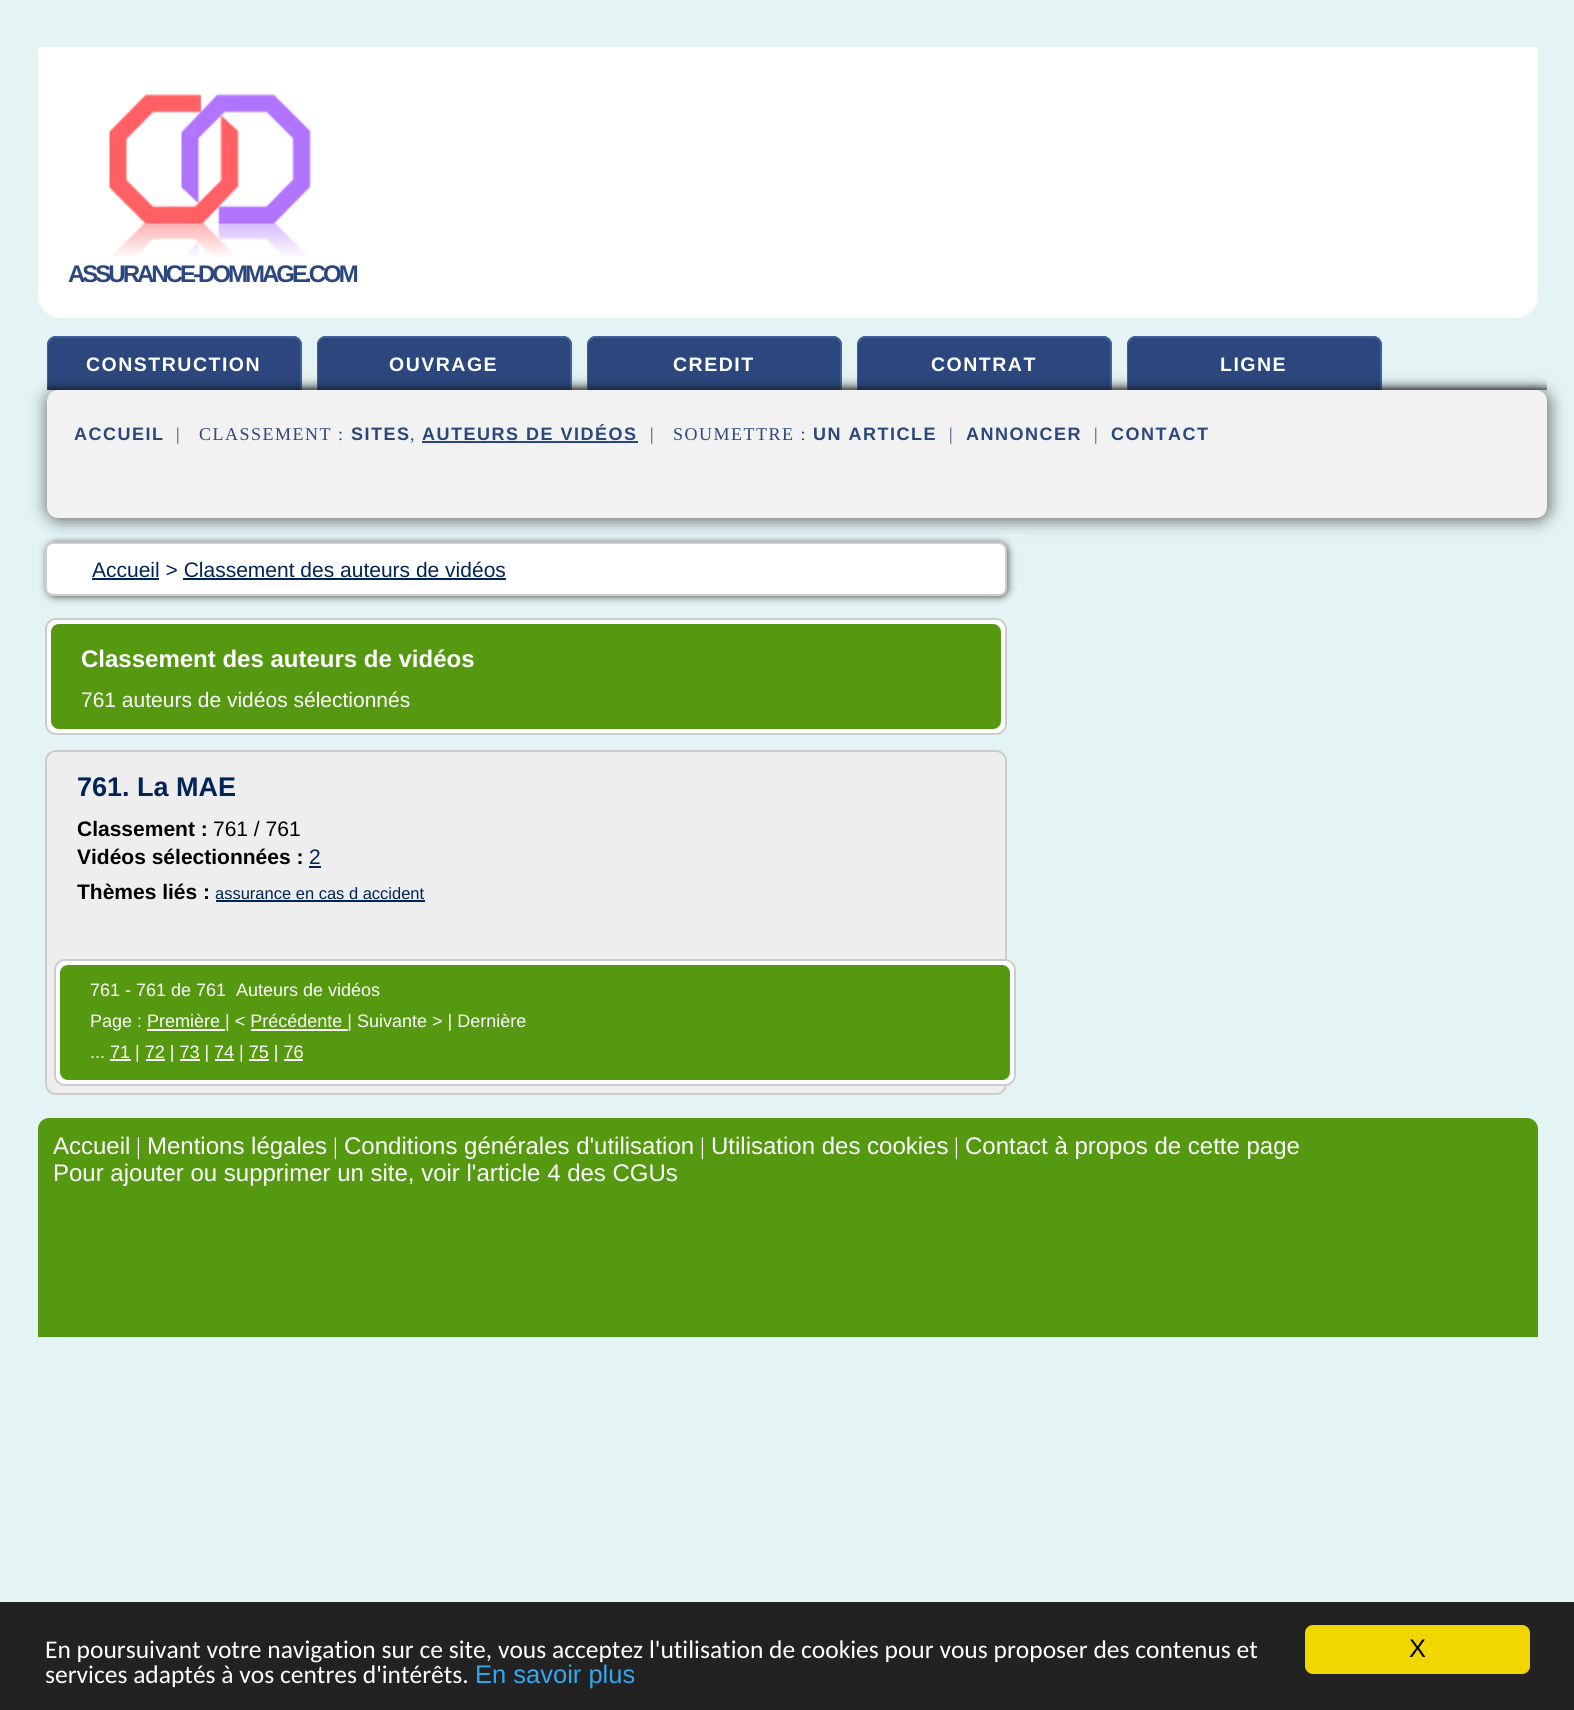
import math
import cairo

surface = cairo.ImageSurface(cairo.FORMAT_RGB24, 1574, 1710)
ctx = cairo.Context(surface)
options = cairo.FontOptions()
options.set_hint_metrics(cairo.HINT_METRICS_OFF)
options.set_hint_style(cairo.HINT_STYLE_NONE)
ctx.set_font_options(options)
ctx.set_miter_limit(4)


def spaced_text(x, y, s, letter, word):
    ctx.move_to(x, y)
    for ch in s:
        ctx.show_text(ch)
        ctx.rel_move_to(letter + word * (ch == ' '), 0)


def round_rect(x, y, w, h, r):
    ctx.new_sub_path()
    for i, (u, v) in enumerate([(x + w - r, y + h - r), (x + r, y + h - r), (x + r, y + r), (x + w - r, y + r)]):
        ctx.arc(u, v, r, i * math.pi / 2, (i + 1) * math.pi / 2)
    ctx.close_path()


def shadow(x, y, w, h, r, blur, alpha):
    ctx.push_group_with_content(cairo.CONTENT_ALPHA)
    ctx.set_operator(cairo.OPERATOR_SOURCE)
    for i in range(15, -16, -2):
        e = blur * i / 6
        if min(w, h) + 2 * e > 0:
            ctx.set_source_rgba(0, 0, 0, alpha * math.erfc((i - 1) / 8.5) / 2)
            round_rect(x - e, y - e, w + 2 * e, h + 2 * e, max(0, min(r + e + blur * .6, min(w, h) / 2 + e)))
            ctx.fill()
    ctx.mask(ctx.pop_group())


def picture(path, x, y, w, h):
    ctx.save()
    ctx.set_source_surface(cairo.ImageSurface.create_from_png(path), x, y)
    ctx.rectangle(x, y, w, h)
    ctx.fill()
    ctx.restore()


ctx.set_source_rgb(0.894, 0.957, 0.957)
ctx.paint()
ctx.set_source_rgb(1, 1, 1)
ctx.new_path()
ctx.move_to(38, 47)
ctx.line_to(1538, 47)
ctx.line_to(1538, 295)
ctx.curve_to(1538, 307.5, 1527.5, 318, 1515, 318)
ctx.line_to(61, 318)
ctx.curve_to(48.5, 318, 38, 307.5, 38, 295)
ctx.close_path()
ctx.fill()
picture("img1.png", 109, 94, 202, 163)
ctx.select_font_face("Liberation Sans", cairo.FONT_SLANT_NORMAL, cairo.FONT_WEIGHT_BOLD)
ctx.set_font_size(24)
ctx.set_source_rgb(0.169, 0.278, 0.49)
spaced_text(68, 282, "ASSURANCE-DOMMAGE.COM", -3, 0)
ctx.set_source_rgb(0.333, 0.333, 0.333)
shadow(48, 392, 1500, 127, 11, 9, 1)
ctx.set_source_rgb(0.169, 0.278, 0.49)
ctx.new_path()
ctx.move_to(56, 336)
ctx.line_to(293, 336)
ctx.curve_to(298, 336, 302, 340, 302, 345)
ctx.line_to(302, 390)
ctx.line_to(47, 390)
ctx.line_to(47, 345)
ctx.curve_to(47, 340, 51, 336, 56, 336)
ctx.close_path()
ctx.fill()
ctx.set_source_rgb(0.949, 0.949, 0.949)
round_rect(47, 390, 1500, 128, 11)
ctx.fill()
ctx.save()
ctx.rectangle(47, 336, 1500, 54)
ctx.clip()
round_rect(48, 337, 253, 61, 8)
ctx.set_source_rgb(0.255, 0.373, 0.616)
ctx.stroke()
ctx.set_source_rgb(0.169, 0.278, 0.49)
round_rect(48, 338, 252, 60, 9)
ctx.fill()
ctx.restore()
ctx.set_font_size(19.5)
ctx.set_source_rgb(1, 1, 1)
spaced_text(86, 371, "CONSTRUCTION", 1.5, 0)
ctx.set_source_rgb(0.169, 0.278, 0.49)
ctx.new_path()
ctx.move_to(326, 336)
ctx.line_to(563, 336)
ctx.curve_to(568, 336, 572, 340, 572, 345)
ctx.line_to(572, 390)
ctx.line_to(317, 390)
ctx.line_to(317, 345)
ctx.curve_to(317, 340, 321, 336, 326, 336)
ctx.close_path()
ctx.fill()
ctx.save()
ctx.rectangle(47, 336, 1500, 54)
ctx.clip()
round_rect(318, 337, 253, 61, 8)
ctx.set_source_rgb(0.255, 0.373, 0.616)
ctx.stroke()
ctx.set_source_rgb(0.169, 0.278, 0.49)
round_rect(318, 338, 252, 60, 9)
ctx.fill()
ctx.restore()
ctx.set_source_rgb(1, 1, 1)
spaced_text(389, 371, "OUVRAGE", 1.5, 0)
ctx.set_source_rgb(0.169, 0.278, 0.49)
ctx.new_path()
ctx.move_to(596, 336)
ctx.line_to(833, 336)
ctx.curve_to(838, 336, 842, 340, 842, 345)
ctx.line_to(842, 390)
ctx.line_to(587, 390)
ctx.line_to(587, 345)
ctx.curve_to(587, 340, 591, 336, 596, 336)
ctx.close_path()
ctx.fill()
ctx.save()
ctx.rectangle(47, 336, 1500, 54)
ctx.clip()
round_rect(588, 337, 253, 61, 8)
ctx.set_source_rgb(0.255, 0.373, 0.616)
ctx.stroke()
ctx.set_source_rgb(0.169, 0.278, 0.49)
round_rect(588, 338, 252, 60, 9)
ctx.fill()
ctx.restore()
ctx.set_source_rgb(1, 1, 1)
spaced_text(673, 371, "CREDIT", 1.5, 0)
ctx.set_source_rgb(0.169, 0.278, 0.49)
ctx.new_path()
ctx.move_to(866, 336)
ctx.line_to(1103, 336)
ctx.curve_to(1108, 336, 1112, 340, 1112, 345)
ctx.line_to(1112, 390)
ctx.line_to(857, 390)
ctx.line_to(857, 345)
ctx.curve_to(857, 340, 861, 336, 866, 336)
ctx.close_path()
ctx.fill()
ctx.save()
ctx.rectangle(47, 336, 1500, 54)
ctx.clip()
round_rect(858, 337, 253, 61, 8)
ctx.set_source_rgb(0.255, 0.373, 0.616)
ctx.stroke()
ctx.set_source_rgb(0.169, 0.278, 0.49)
round_rect(858, 338, 252, 60, 9)
ctx.fill()
ctx.restore()
ctx.set_source_rgb(1, 1, 1)
spaced_text(931, 371, "CONTRAT", 1.5, 0)
ctx.set_source_rgb(0.169, 0.278, 0.49)
ctx.new_path()
ctx.move_to(1136, 336)
ctx.line_to(1373, 336)
ctx.curve_to(1378, 336, 1382, 340, 1382, 345)
ctx.line_to(1382, 390)
ctx.line_to(1127, 390)
ctx.line_to(1127, 345)
ctx.curve_to(1127, 340, 1131, 336, 1136, 336)
ctx.close_path()
ctx.fill()
ctx.save()
ctx.rectangle(47, 336, 1500, 54)
ctx.clip()
round_rect(1128, 337, 253, 61, 8)
ctx.set_source_rgb(0.255, 0.373, 0.616)
ctx.stroke()
ctx.set_source_rgb(0.169, 0.278, 0.49)
round_rect(1128, 338, 252, 60, 9)
ctx.fill()
ctx.restore()
ctx.set_source_rgb(1, 1, 1)
spaced_text(1220, 371, "LIGNE", 1.5, 0)
ctx.save()
ctx.rectangle(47, 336, 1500, 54)
ctx.clip()
ctx.set_source_rgb(0.067, 0.067, 0.067)
shadow(47, 389, 1500, 3, 1.5, 4.5, 1)
ctx.restore()
ctx.set_font_size(18)
ctx.set_source_rgb(0.169, 0.278, 0.49)
spaced_text(74, 440, "ACCUEIL", 1.5, 0)
ctx.select_font_face("Liberation Serif")
spaced_text(176, 440, "|", 1.5, 0)
spaced_text(199, 440, "CLASSEMENT :", 1.5, 0)
ctx.select_font_face("Liberation Sans", cairo.FONT_SLANT_NORMAL, cairo.FONT_WEIGHT_BOLD)
spaced_text(351, 440, "SITES", 1.5, 0)
ctx.select_font_face("Liberation Serif")
spaced_text(410, 440, ",", 1.5, 0)
ctx.select_font_face("Liberation Sans", cairo.FONT_SLANT_NORMAL, cairo.FONT_WEIGHT_BOLD)
spaced_text(422, 440, "AUTEURS DE VIDÉOS", 1.5, 0)
ctx.rectangle(422, 441, 216, 2)
ctx.fill()
ctx.select_font_face("Liberation Serif")
spaced_text(650, 440, "|", 1.5, 0)
spaced_text(673, 440, "SOUMETTRE :", 1.5, 0)
ctx.select_font_face("Liberation Sans", cairo.FONT_SLANT_NORMAL, cairo.FONT_WEIGHT_BOLD)
spaced_text(813, 440, "UN ARTICLE", 1.5, 0)
ctx.select_font_face("Liberation Serif")
spaced_text(949, 440, "|", 1.5, 0)
ctx.select_font_face("Liberation Sans", cairo.FONT_SLANT_NORMAL, cairo.FONT_WEIGHT_BOLD)
spaced_text(966, 440, "ANNONCER", 1.5, 0)
ctx.select_font_face("Liberation Serif")
spaced_text(1094, 440, "|", 1.5, 0)
ctx.select_font_face("Liberation Sans", cairo.FONT_SLANT_NORMAL, cairo.FONT_WEIGHT_BOLD)
spaced_text(1111, 440, "CONTACT", 1.5, 0)
ctx.set_source_rgb(0.894, 0.957, 0.957)
ctx.rectangle(49, 534, 977, 4)
ctx.fill()
ctx.set_source_rgb(0.333, 0.333, 0.333)
shadow(47, 543, 961, 54, 8, 4, 1)
ctx.set_source_rgb(1, 1, 1)
round_rect(46, 543, 960, 52, 7)
ctx.fill_preserve()
ctx.set_source_rgb(0.8, 0.8, 0.8)
ctx.stroke()
ctx.select_font_face("Liberation Sans")
ctx.set_font_size(21)
ctx.set_source_rgb(0, 0.141, 0.333)
ctx.move_to(92, 577)
ctx.show_text("Accueil > Classement des auteurs de vidéos")
ctx.rectangle(92, 578, 67, 2)
ctx.fill()
ctx.rectangle(183, 578, 323, 2)
ctx.fill()
ctx.set_source_rgb(1, 1, 1)
round_rect(46, 619, 960, 115, 10)
ctx.fill_preserve()
ctx.set_source_rgb(0.8, 0.8, 0.8)
ctx.stroke()
ctx.set_source_rgb(0.333, 0.6, 0.067)
round_rect(51, 624, 950, 105, 8)
ctx.fill()
ctx.select_font_face("Liberation Sans", cairo.FONT_SLANT_NORMAL, cairo.FONT_WEIGHT_BOLD)
ctx.set_font_size(24)
ctx.set_source_rgb(1, 1, 1)
ctx.move_to(81, 667)
ctx.show_text("Classement des auteurs de vidéos")
ctx.select_font_face("Liberation Sans")
ctx.set_font_size(21)
ctx.move_to(81, 707)
ctx.show_text("761 auteurs de vidéos sélectionnés")
ctx.set_source_rgb(0.933, 0.933, 0.933)
round_rect(46, 751, 960, 343, 10)
ctx.fill_preserve()
ctx.set_source_rgb(0.8, 0.8, 0.8)
ctx.stroke()
ctx.select_font_face("Liberation Sans", cairo.FONT_SLANT_NORMAL, cairo.FONT_WEIGHT_BOLD)
ctx.set_font_size(27)
ctx.set_source_rgb(0, 0.141, 0.333)
ctx.move_to(77, 796)
ctx.show_text("761. La MAE")
ctx.set_font_size(21)
ctx.set_source_rgb(0, 0, 0)
ctx.move_to(77, 836)
ctx.show_text("Classement :")
ctx.select_font_face("Liberation Sans")
ctx.move_to(213, 836)
ctx.show_text("761 / 761")
ctx.select_font_face("Liberation Sans", cairo.FONT_SLANT_NORMAL, cairo.FONT_WEIGHT_BOLD)
ctx.move_to(77, 864)
ctx.show_text("Vidéos sélectionnées :")
ctx.select_font_face("Liberation Sans")
ctx.set_source_rgb(0, 0.141, 0.333)
ctx.move_to(309, 864)
ctx.show_text("2")
ctx.rectangle(309, 866, 12, 2)
ctx.fill()
ctx.select_font_face("Liberation Sans", cairo.FONT_SLANT_NORMAL, cairo.FONT_WEIGHT_BOLD)
ctx.set_source_rgb(0, 0, 0)
ctx.move_to(77, 899)
ctx.show_text("Thèmes liés :")
ctx.select_font_face("Liberation Sans")
ctx.set_font_size(16.5)
ctx.set_source_rgb(0, 0.141, 0.333)
ctx.move_to(215, 899)
ctx.show_text("assurance en cas d accident")
ctx.rectangle(216, 900, 209, 2)
ctx.fill()
ctx.set_source_rgb(1, 1, 1)
round_rect(55, 960, 960, 125, 10)
ctx.fill_preserve()
ctx.set_source_rgb(0.8, 0.8, 0.8)
ctx.stroke()
ctx.set_source_rgb(0.333, 0.6, 0.067)
round_rect(60, 965, 950, 115, 8)
ctx.fill()
ctx.set_font_size(18)
ctx.set_source_rgb(1, 1, 1)
ctx.move_to(90, 996)
ctx.show_text("761 - 761 de 761")
ctx.move_to(236, 996)
ctx.show_text("Auteurs de vidéos")
ctx.move_to(90, 1027)
ctx.show_text("Page : Première | < Précédente | Suivante > | Dernière")
ctx.rectangle(147, 1029, 78, 2)
ctx.fill()
ctx.rectangle(251, 1029, 97, 2)
ctx.fill()
ctx.move_to(90, 1058)
ctx.show_text("... 71 | 72 | 73 | 74 | 75 | 76")
ctx.rectangle(110, 1059, 21, 2)
ctx.fill()
ctx.rectangle(146, 1059, 19, 2)
ctx.fill()
ctx.rectangle(180, 1059, 20, 2)
ctx.fill()
ctx.rectangle(215, 1059, 19, 2)
ctx.fill()
ctx.rectangle(249, 1059, 20, 2)
ctx.fill()
ctx.rectangle(284, 1059, 19, 2)
ctx.fill()
ctx.set_source_rgb(0.333, 0.6, 0.067)
ctx.new_path()
ctx.move_to(49, 1118)
ctx.line_to(1527, 1118)
ctx.curve_to(1533, 1118, 1538, 1123, 1538, 1129)
ctx.line_to(1538, 1337)
ctx.line_to(38, 1337)
ctx.line_to(38, 1129)
ctx.curve_to(38, 1123, 43, 1118, 49, 1118)
ctx.close_path()
ctx.fill()
ctx.set_font_size(24)
ctx.set_source_rgb(1, 1, 1)
ctx.move_to(53, 1154)
ctx.show_text("Accueil")
ctx.select_font_face("Liberation Serif")
ctx.move_to(136, 1154)
ctx.show_text("|")
ctx.select_font_face("Liberation Sans")
ctx.move_to(147, 1154)
ctx.show_text("Mentions légales")
ctx.select_font_face("Liberation Serif")
ctx.move_to(333, 1154)
ctx.show_text("|")
ctx.select_font_face("Liberation Sans")
ctx.move_to(344, 1154)
ctx.show_text("Conditions générales d'utilisation")
ctx.select_font_face("Liberation Serif")
ctx.move_to(700, 1154)
ctx.show_text("|")
ctx.select_font_face("Liberation Sans")
ctx.move_to(711, 1154)
ctx.show_text("Utilisation des cookies")
ctx.select_font_face("Liberation Serif")
ctx.move_to(954, 1154)
ctx.show_text("|")
ctx.select_font_face("Liberation Sans")
ctx.move_to(965, 1154)
ctx.show_text("Contact à propos de cette page")
ctx.move_to(53, 1181)
ctx.show_text("Pour ajouter ou supprimer un site, voir l'article 4 des CGUs")
ctx.set_source_rgb(0.133, 0.133, 0.133)
ctx.rectangle(0, 1602, 1574, 108)
ctx.fill()
ctx.select_font_face("Carlito")
ctx.set_font_size(25.5)
ctx.set_source_rgb(1, 1, 1)
ctx.move_to(45, 1658)
ctx.show_text("En poursuivant votre navigation sur ce site, vous acceptez l'utilisation de cookies pour vous proposer des contenus et")
ctx.move_to(45, 1683)
ctx.show_text("services adaptés à vos centres d'intérêts.")
ctx.select_font_face("Liberation Sans")
ctx.set_source_rgb(0.192, 0.659, 0.941)
ctx.move_to(475, 1683)
ctx.show_text("En savoir plus")
ctx.set_source_rgb(0.945, 0.839, 0)
round_rect(1305, 1625, 225, 49, 8)
ctx.fill()
ctx.set_source_rgb(0, 0, 0)
ctx.move_to(1409, 1657)
ctx.show_text("X")
surface.write_to_png("page.png")
